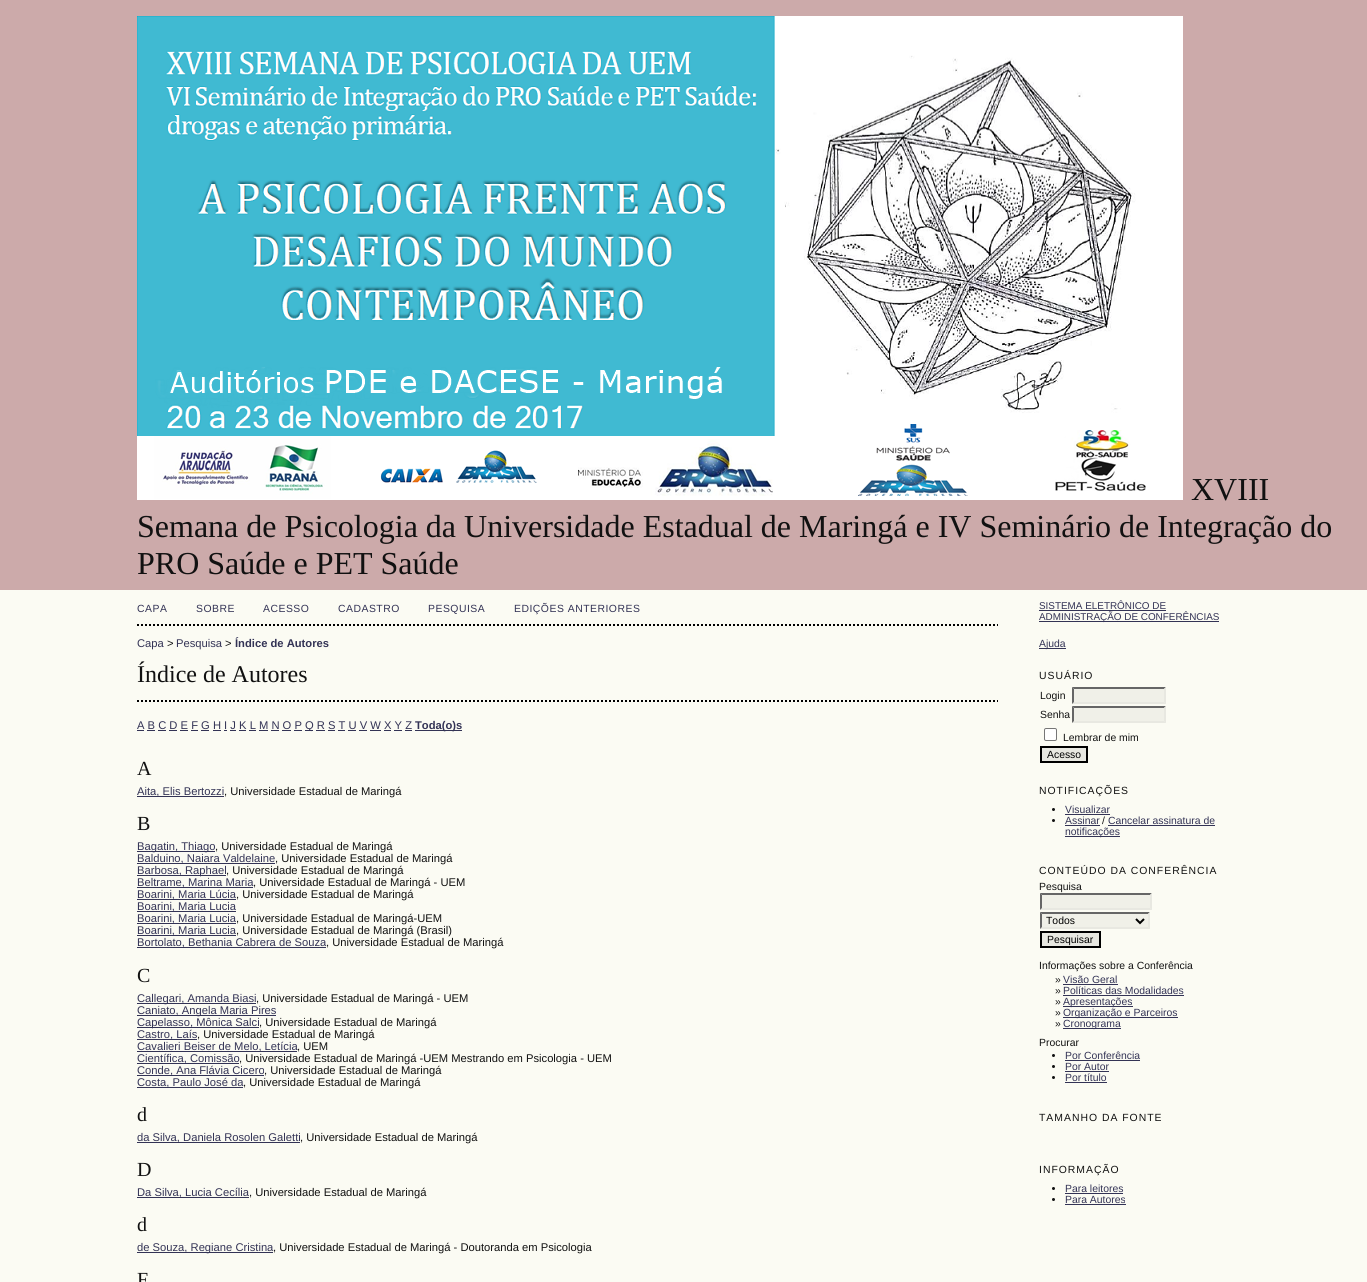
import math
import cairo

surface = cairo.ImageSurface(cairo.FORMAT_RGB24, 1367, 1282)
ctx = cairo.Context(surface)
options = cairo.FontOptions()
options.set_hint_metrics(cairo.HINT_METRICS_OFF)
options.set_hint_style(cairo.HINT_STYLE_NONE)
ctx.set_font_options(options)
ctx.set_miter_limit(4)


def spaced_text(x, y, s, letter, word):
    ctx.move_to(x, y)
    for ch in s:
        ctx.show_text(ch)
        ctx.rel_move_to(letter + word * (ch == ' '), 0)


def round_rect(x, y, w, h, r):
    ctx.new_sub_path()
    for i, (u, v) in enumerate([(x + w - r, y + h - r), (x + r, y + h - r), (x + r, y + r), (x + w - r, y + r)]):
        ctx.arc(u, v, r, i * math.pi / 2, (i + 1) * math.pi / 2)
    ctx.close_path()


def picture(path, x, y, w, h):
    ctx.save()
    ctx.set_source_surface(cairo.ImageSurface.create_from_png(path), x, y)
    ctx.rectangle(x, y, w, h)
    ctx.fill()
    ctx.restore()


ctx.set_source_rgb(0.984, 0.984, 0.953)
ctx.paint()
ctx.set_source_rgb(0.8, 0.667, 0.667)
ctx.rectangle(0, 0, 1367, 590)
ctx.fill()
picture("img1.png", 137, 16, 1046, 484)
ctx.select_font_face("Liberation Serif")
ctx.set_font_size(32)
ctx.set_source_rgb(0.067, 0.067, 0.067)
ctx.move_to(1191, 500)
ctx.show_text("XVIII")
ctx.move_to(137, 537)
ctx.show_text("Semana de Psicologia da Universidade Estadual de Maringá e IV Seminário de Integração do")
ctx.move_to(137, 574)
ctx.show_text("PRO Saúde e PET Saúde")
ctx.new_path()
ctx.move_to(137, 625)
ctx.line_to(998, 625)
ctx.set_source_rgb(0, 0, 0)
ctx.set_dash([2, 2])
ctx.stroke()
ctx.select_font_face("Liberation Sans")
ctx.set_font_size(10.4)
ctx.set_source_rgb(0.2, 0.2, 0.333)
spaced_text(137, 612, "CAPA", 0.5, 0)
spaced_text(196, 612, "SOBRE", 0.5, 0)
spaced_text(263, 612, "ACESSO", 0.5, 0)
spaced_text(338, 612, "CADASTRO", 0.5, 0)
spaced_text(428, 612, "PESQUISA", 0.5, 0)
spaced_text(514, 612, "EDIÇÕES ANTERIORES", 0.5, 0)
ctx.set_font_size(11.2)
ctx.move_to(137, 647)
ctx.show_text("Capa")
ctx.set_source_rgb(0.067, 0.067, 0.067)
ctx.move_to(167, 647)
ctx.show_text(">")
ctx.set_source_rgb(0.2, 0.2, 0.333)
ctx.move_to(176, 647)
ctx.show_text("Pesquisa")
ctx.set_source_rgb(0.067, 0.067, 0.067)
ctx.move_to(225, 647)
ctx.show_text(">")
ctx.select_font_face("Liberation Sans", cairo.FONT_SLANT_NORMAL, cairo.FONT_WEIGHT_BOLD)
ctx.set_source_rgb(0.2, 0.2, 0.333)
ctx.move_to(235, 647)
ctx.show_text("Índice de Autores")
ctx.select_font_face("Liberation Serif")
ctx.set_font_size(24)
ctx.set_source_rgb(0.067, 0.067, 0.067)
ctx.move_to(137, 682)
ctx.show_text("Índice de Autores")
ctx.new_path()
ctx.move_to(137, 701)
ctx.line_to(998, 701)
ctx.set_source_rgb(0, 0, 0)
ctx.stroke()
ctx.select_font_face("Liberation Sans")
ctx.set_font_size(11.2)
ctx.set_source_rgb(0.2, 0.2, 0.333)
ctx.move_to(137, 729)
ctx.show_text("A B C D E F G H I J K L M N O P")
ctx.rectangle(137, 730, 7, 1)
ctx.fill()
ctx.rectangle(305, 730, 8, 1)
ctx.fill()
ctx.move_to(305, 729)
ctx.show_text("Q R S T U V W X Y Z")
ctx.rectangle(415, 730, 47, 1)
ctx.fill()
ctx.select_font_face("Liberation Sans", cairo.FONT_SLANT_NORMAL, cairo.FONT_WEIGHT_BOLD)
ctx.move_to(415, 729)
ctx.show_text("Toda(o)s")
ctx.rectangle(147, 730, 8, 1)
ctx.fill()
ctx.rectangle(158, 730, 8, 1)
ctx.fill()
ctx.rectangle(169, 730, 8, 1)
ctx.fill()
ctx.rectangle(180, 730, 8, 1)
ctx.fill()
ctx.rectangle(191, 730, 7, 1)
ctx.fill()
ctx.rectangle(201, 730, 8, 1)
ctx.fill()
ctx.rectangle(213, 730, 8, 1)
ctx.fill()
ctx.rectangle(224, 730, 3, 1)
ctx.fill()
ctx.rectangle(230, 730, 6, 1)
ctx.fill()
ctx.rectangle(239, 730, 7, 1)
ctx.fill()
ctx.rectangle(249, 730, 7, 1)
ctx.fill()
ctx.rectangle(259, 730, 9, 1)
ctx.fill()
ctx.rectangle(271, 730, 8, 1)
ctx.fill()
ctx.rectangle(282, 730, 9, 1)
ctx.fill()
ctx.rectangle(294, 730, 8, 1)
ctx.fill()
ctx.rectangle(316, 730, 9, 1)
ctx.fill()
ctx.rectangle(328, 730, 7, 1)
ctx.fill()
ctx.rectangle(338, 730, 7, 1)
ctx.fill()
ctx.rectangle(348, 730, 8, 1)
ctx.fill()
ctx.rectangle(359, 730, 8, 1)
ctx.fill()
ctx.rectangle(370, 730, 11, 1)
ctx.fill()
ctx.rectangle(384, 730, 7, 1)
ctx.fill()
ctx.rectangle(394, 730, 8, 1)
ctx.fill()
ctx.rectangle(405, 730, 7, 1)
ctx.fill()
ctx.select_font_face("Liberation Serif")
ctx.set_font_size(20)
ctx.set_source_rgb(0.067, 0.067, 0.067)
ctx.move_to(137, 775)
ctx.show_text("A")
ctx.set_source_rgb(0.2, 0.2, 0.333)
ctx.rectangle(137, 796, 87, 1)
ctx.fill()
ctx.select_font_face("Liberation Sans")
ctx.set_font_size(11.2)
ctx.move_to(137, 795)
ctx.show_text("Aita, Elis Bertozzi")
ctx.set_source_rgb(0.067, 0.067, 0.067)
ctx.move_to(224, 795)
ctx.show_text(", Universidade Estadual de Maringá")
ctx.select_font_face("Liberation Serif")
ctx.set_font_size(20)
ctx.move_to(137, 830)
ctx.show_text("B")
ctx.set_source_rgb(0.2, 0.2, 0.333)
ctx.rectangle(137, 851, 78, 1)
ctx.fill()
ctx.select_font_face("Liberation Sans")
ctx.set_font_size(11.2)
ctx.move_to(137, 850)
ctx.show_text("Bagatin, Thiago")
ctx.set_source_rgb(0.067, 0.067, 0.067)
ctx.move_to(215, 850)
ctx.show_text(", Universidade Estadual de Maringá")
ctx.set_source_rgb(0.2, 0.2, 0.333)
ctx.rectangle(137, 863, 138, 1)
ctx.fill()
ctx.move_to(137, 862)
ctx.show_text("Balduino, Naiara Valdelaine")
ctx.set_source_rgb(0.067, 0.067, 0.067)
ctx.move_to(275, 862)
ctx.show_text(", Universidade Estadual de Maringá")
ctx.set_source_rgb(0.2, 0.2, 0.333)
ctx.rectangle(137, 875, 89, 1)
ctx.fill()
ctx.move_to(137, 874)
ctx.show_text("Barbosa, Raphael")
ctx.set_source_rgb(0.067, 0.067, 0.067)
ctx.move_to(226, 874)
ctx.show_text(", Universidade Estadual de Maringá")
ctx.set_source_rgb(0.2, 0.2, 0.333)
ctx.rectangle(137, 887, 116, 1)
ctx.fill()
ctx.move_to(137, 886)
ctx.show_text("Beltrame, Marina Maria")
ctx.set_source_rgb(0.067, 0.067, 0.067)
ctx.move_to(253, 886)
ctx.show_text(", Universidade Estadual de Maringá - UEM")
ctx.set_source_rgb(0.2, 0.2, 0.333)
ctx.rectangle(137, 899, 99, 1)
ctx.fill()
ctx.move_to(137, 898)
ctx.show_text("Boarini, Maria Lúcia")
ctx.set_source_rgb(0.067, 0.067, 0.067)
ctx.move_to(236, 898)
ctx.show_text(", Universidade Estadual de Maringá")
ctx.set_source_rgb(0.2, 0.2, 0.333)
ctx.rectangle(137, 911, 99, 1)
ctx.fill()
ctx.move_to(137, 910)
ctx.show_text("Boarini, Maria Lucia")
ctx.rectangle(137, 923, 99, 1)
ctx.fill()
ctx.move_to(137, 922)
ctx.show_text("Boarini, Maria Lucia")
ctx.set_source_rgb(0.067, 0.067, 0.067)
ctx.move_to(236, 922)
ctx.show_text(", Universidade Estadual de Maringá-UEM")
ctx.set_source_rgb(0.2, 0.2, 0.333)
ctx.rectangle(137, 935, 99, 1)
ctx.fill()
ctx.move_to(137, 934)
ctx.show_text("Boarini, Maria Lucia")
ctx.set_source_rgb(0.067, 0.067, 0.067)
ctx.move_to(236, 934)
ctx.show_text(", Universidade Estadual de Maringá (Brasil)")
ctx.set_source_rgb(0.2, 0.2, 0.333)
ctx.rectangle(137, 947, 189, 1)
ctx.fill()
ctx.move_to(137, 946)
ctx.show_text("Bortolato, Bethania Cabrera de Souza")
ctx.set_source_rgb(0.067, 0.067, 0.067)
ctx.move_to(326, 946)
ctx.show_text(", Universidade Estadual de Maringá")
ctx.select_font_face("Liberation Serif")
ctx.set_font_size(20)
ctx.move_to(137, 982)
ctx.show_text("C")
ctx.set_source_rgb(0.2, 0.2, 0.333)
ctx.rectangle(137, 1003, 119, 1)
ctx.fill()
ctx.select_font_face("Liberation Sans")
ctx.set_font_size(11.2)
ctx.move_to(137, 1002)
ctx.show_text("Callegari, Amanda Biasi")
ctx.set_source_rgb(0.067, 0.067, 0.067)
ctx.move_to(256, 1002)
ctx.show_text(", Universidade Estadual de Maringá - UEM")
ctx.set_source_rgb(0.2, 0.2, 0.333)
ctx.rectangle(137, 1015, 139, 1)
ctx.fill()
ctx.move_to(137, 1014)
ctx.show_text("Caniato, Angela Maria Pires")
ctx.rectangle(137, 1027, 122, 1)
ctx.fill()
ctx.move_to(137, 1026)
ctx.show_text("Capelasso, Mônica Salci")
ctx.set_source_rgb(0.067, 0.067, 0.067)
ctx.move_to(259, 1026)
ctx.show_text(", Universidade Estadual de Maringá")
ctx.set_source_rgb(0.2, 0.2, 0.333)
ctx.rectangle(137, 1039, 60, 1)
ctx.fill()
ctx.move_to(137, 1038)
ctx.show_text("Castro, Laís")
ctx.set_source_rgb(0.067, 0.067, 0.067)
ctx.move_to(197, 1038)
ctx.show_text(", Universidade Estadual de Maringá")
ctx.set_source_rgb(0.2, 0.2, 0.333)
ctx.rectangle(137, 1051, 160, 1)
ctx.fill()
ctx.move_to(137, 1050)
ctx.show_text("Cavalieri Beiser de Melo, Letícia")
ctx.set_source_rgb(0.067, 0.067, 0.067)
ctx.move_to(297, 1050)
ctx.show_text(", UEM")
ctx.set_source_rgb(0.2, 0.2, 0.333)
ctx.rectangle(137, 1063, 102, 1)
ctx.fill()
ctx.move_to(137, 1062)
ctx.show_text("Científica, Comissão")
ctx.set_source_rgb(0.067, 0.067, 0.067)
ctx.move_to(239, 1062)
ctx.show_text(", Universidade Estadual de Maringá -UEM Mestrando em Psicologia - UEM")
ctx.set_source_rgb(0.2, 0.2, 0.333)
ctx.rectangle(137, 1075, 127, 1)
ctx.fill()
ctx.move_to(137, 1074)
ctx.show_text("Conde, Ana Flávia Cicero")
ctx.set_source_rgb(0.067, 0.067, 0.067)
ctx.move_to(264, 1074)
ctx.show_text(", Universidade Estadual de Maringá")
ctx.set_source_rgb(0.2, 0.2, 0.333)
ctx.rectangle(137, 1087, 106, 1)
ctx.fill()
ctx.move_to(137, 1086)
ctx.show_text("Costa, Paulo José da")
ctx.set_source_rgb(0.067, 0.067, 0.067)
ctx.move_to(243, 1086)
ctx.show_text(", Universidade Estadual de Maringá")
ctx.select_font_face("Liberation Serif")
ctx.set_font_size(20)
ctx.move_to(137, 1121)
ctx.show_text("d")
ctx.set_source_rgb(0.2, 0.2, 0.333)
ctx.rectangle(137, 1142, 163, 1)
ctx.fill()
ctx.select_font_face("Liberation Sans")
ctx.set_font_size(11.2)
ctx.move_to(137, 1141)
ctx.show_text("da Silva, Daniela Rosolen Galetti")
ctx.set_source_rgb(0.067, 0.067, 0.067)
ctx.move_to(300, 1141)
ctx.show_text(", Universidade Estadual de Maringá")
ctx.select_font_face("Liberation Serif")
ctx.set_font_size(20)
ctx.move_to(137, 1176)
ctx.show_text("D")
ctx.set_source_rgb(0.2, 0.2, 0.333)
ctx.rectangle(137, 1197, 112, 1)
ctx.fill()
ctx.select_font_face("Liberation Sans")
ctx.set_font_size(11.2)
ctx.move_to(137, 1196)
ctx.show_text("Da Silva, Lucia Cecília")
ctx.set_source_rgb(0.067, 0.067, 0.067)
ctx.move_to(249, 1196)
ctx.show_text(", Universidade Estadual de Maringá")
ctx.select_font_face("Liberation Serif")
ctx.set_font_size(20)
ctx.move_to(137, 1231)
ctx.show_text("d")
ctx.set_source_rgb(0.2, 0.2, 0.333)
ctx.rectangle(137, 1252, 136, 1)
ctx.fill()
ctx.select_font_face("Liberation Sans")
ctx.set_font_size(11.2)
ctx.move_to(137, 1251)
ctx.show_text("de Souza, Regiane Cristina")
ctx.set_source_rgb(0.067, 0.067, 0.067)
ctx.move_to(273, 1251)
ctx.show_text(", Universidade Estadual de Maringá - Doutoranda em Psicologia")
ctx.select_font_face("Liberation Serif")
ctx.set_font_size(20)
ctx.move_to(137, 1286)
ctx.show_text("F")
ctx.select_font_face("Liberation Sans")
ctx.set_font_size(9.9)
ctx.set_source_rgb(0.2, 0.2, 0.333)
ctx.move_to(1039, 609)
ctx.show_text("SISTEMA ELETRÔNICO DE")
ctx.rectangle(1039, 610, 127, 1)
ctx.fill()
ctx.rectangle(1039, 621, 180, 1)
ctx.fill()
ctx.move_to(1039, 620)
ctx.show_text("ADMINISTRAÇÃO DE CONFERÊNCIAS")
ctx.rectangle(1039, 648, 27, 1)
ctx.fill()
ctx.set_font_size(10.4)
ctx.move_to(1039, 647)
ctx.show_text("Ajuda")
ctx.set_source_rgb(0.067, 0.067, 0.067)
spaced_text(1039, 679, "USUÁRIO", 1, 0)
ctx.move_to(1040, 699)
ctx.show_text("Login")
ctx.set_source_rgb(0.941, 0.941, 0.91)
ctx.rectangle(1072, 687, 94, 17)
ctx.fill()
ctx.set_source_rgb(0.4, 0.4, 0.4)
ctx.new_path()
ctx.move_to(1072, 687)
ctx.line_to(1166, 687)
ctx.line_to(1164, 689)
ctx.line_to(1074, 689)
ctx.close_path()
ctx.fill()
ctx.set_source_rgb(0.91, 0.91, 0.882)
ctx.new_path()
ctx.move_to(1166, 687)
ctx.line_to(1166, 704)
ctx.line_to(1164, 702)
ctx.line_to(1164, 689)
ctx.close_path()
ctx.fill()
ctx.new_path()
ctx.move_to(1166, 704)
ctx.line_to(1072, 704)
ctx.line_to(1074, 702)
ctx.line_to(1164, 702)
ctx.close_path()
ctx.fill()
ctx.set_source_rgb(0.4, 0.4, 0.4)
ctx.new_path()
ctx.move_to(1072, 704)
ctx.line_to(1072, 687)
ctx.line_to(1074, 689)
ctx.line_to(1074, 702)
ctx.close_path()
ctx.fill()
ctx.set_source_rgb(0.067, 0.067, 0.067)
ctx.move_to(1040, 718)
ctx.show_text("Senha")
ctx.set_source_rgb(0.941, 0.941, 0.91)
ctx.rectangle(1072, 706, 94, 17)
ctx.fill()
ctx.set_source_rgb(0.4, 0.4, 0.4)
ctx.new_path()
ctx.move_to(1072, 706)
ctx.line_to(1166, 706)
ctx.line_to(1164, 708)
ctx.line_to(1074, 708)
ctx.close_path()
ctx.fill()
ctx.set_source_rgb(0.91, 0.91, 0.882)
ctx.new_path()
ctx.move_to(1166, 706)
ctx.line_to(1166, 723)
ctx.line_to(1164, 721)
ctx.line_to(1164, 708)
ctx.close_path()
ctx.fill()
ctx.new_path()
ctx.move_to(1166, 723)
ctx.line_to(1072, 723)
ctx.line_to(1074, 721)
ctx.line_to(1164, 721)
ctx.close_path()
ctx.fill()
ctx.set_source_rgb(0.4, 0.4, 0.4)
ctx.new_path()
ctx.move_to(1072, 723)
ctx.line_to(1072, 706)
ctx.line_to(1074, 708)
ctx.line_to(1074, 721)
ctx.close_path()
ctx.fill()
ctx.set_source_rgb(1, 1, 1)
round_rect(1044.5, 728.5, 12, 12, 1.5)
ctx.fill_preserve()
ctx.set_source_rgb(0.463, 0.463, 0.463)
ctx.set_line_width(1)
ctx.set_dash([])
ctx.stroke()
ctx.set_source_rgb(0.067, 0.067, 0.067)
ctx.move_to(1063, 741)
ctx.show_text("Lembrar de mim")
ctx.set_source_rgb(0.91, 0.91, 0.882)
ctx.rectangle(1041, 747, 46, 15)
ctx.fill_preserve()
ctx.set_source_rgb(0, 0, 0)
ctx.set_line_width(2)
ctx.stroke()
ctx.move_to(1047, 758)
ctx.show_text("Acesso")
ctx.set_source_rgb(0.067, 0.067, 0.067)
spaced_text(1039, 794, "NOTIFICAÇÕES", 1, 0)
ctx.new_path()
ctx.arc(1053.5, 809.5, 1.5, 0, 2 * math.pi)
ctx.fill()
ctx.set_source_rgb(0.2, 0.2, 0.333)
ctx.move_to(1065, 813)
ctx.show_text("Visualizar")
ctx.rectangle(1065, 814, 45, 1)
ctx.fill()
ctx.set_source_rgb(0.067, 0.067, 0.067)
ctx.arc(1053.5, 820.5, 1.5, 0, 2 * math.pi)
ctx.fill()
ctx.set_source_rgb(0.2, 0.2, 0.333)
ctx.move_to(1065, 824)
ctx.show_text("Assinar")
ctx.rectangle(1065, 825, 35, 1)
ctx.fill()
ctx.set_source_rgb(0.067, 0.067, 0.067)
ctx.move_to(1102, 824)
ctx.show_text("/")
ctx.set_source_rgb(0.2, 0.2, 0.333)
ctx.move_to(1108, 824)
ctx.show_text("Cancelar assinatura de")
ctx.rectangle(1108, 825, 107, 1)
ctx.fill()
ctx.rectangle(1065, 836, 55, 1)
ctx.fill()
ctx.move_to(1065, 835)
ctx.show_text("notificações")
ctx.set_source_rgb(0.067, 0.067, 0.067)
spaced_text(1039, 874, "CONTEÚDO DA CONFERÊNCIA", 1, 0)
ctx.move_to(1039, 890)
ctx.show_text("Pesquisa")
ctx.set_source_rgb(0.941, 0.941, 0.91)
ctx.rectangle(1040, 893, 112, 17)
ctx.fill()
ctx.set_source_rgb(0.4, 0.4, 0.4)
ctx.new_path()
ctx.move_to(1040, 893)
ctx.line_to(1152, 893)
ctx.line_to(1150, 895)
ctx.line_to(1042, 895)
ctx.close_path()
ctx.fill()
ctx.set_source_rgb(0.91, 0.91, 0.882)
ctx.new_path()
ctx.move_to(1152, 893)
ctx.line_to(1152, 910)
ctx.line_to(1150, 908)
ctx.line_to(1150, 895)
ctx.close_path()
ctx.fill()
ctx.new_path()
ctx.move_to(1152, 910)
ctx.line_to(1040, 910)
ctx.line_to(1042, 908)
ctx.line_to(1150, 908)
ctx.close_path()
ctx.fill()
ctx.set_source_rgb(0.4, 0.4, 0.4)
ctx.new_path()
ctx.move_to(1040, 910)
ctx.line_to(1040, 893)
ctx.line_to(1042, 895)
ctx.line_to(1042, 908)
ctx.close_path()
ctx.fill()
ctx.set_source_rgb(0.941, 0.941, 0.91)
ctx.rectangle(1040, 912, 110, 17)
ctx.fill()
ctx.set_source_rgb(0.4, 0.4, 0.4)
ctx.new_path()
ctx.move_to(1040, 912)
ctx.line_to(1150, 912)
ctx.line_to(1148, 914)
ctx.line_to(1042, 914)
ctx.close_path()
ctx.fill()
ctx.set_source_rgb(0.91, 0.91, 0.882)
ctx.new_path()
ctx.move_to(1150, 912)
ctx.line_to(1150, 929)
ctx.line_to(1148, 927)
ctx.line_to(1148, 914)
ctx.close_path()
ctx.fill()
ctx.new_path()
ctx.move_to(1150, 929)
ctx.line_to(1040, 929)
ctx.line_to(1042, 927)
ctx.line_to(1148, 927)
ctx.close_path()
ctx.fill()
ctx.set_source_rgb(0.4, 0.4, 0.4)
ctx.new_path()
ctx.move_to(1040, 929)
ctx.line_to(1040, 912)
ctx.line_to(1042, 914)
ctx.line_to(1042, 927)
ctx.close_path()
ctx.fill()
ctx.new_path()
ctx.move_to(1136, 919)
ctx.line_to(1140, 923)
ctx.line_to(1144, 919)
ctx.set_source_rgb(0, 0, 0)
ctx.stroke()
ctx.move_to(1046, 924)
ctx.show_text("Todos")
ctx.set_source_rgb(0.91, 0.91, 0.882)
ctx.rectangle(1041, 932, 59, 15)
ctx.fill_preserve()
ctx.set_source_rgb(0, 0, 0)
ctx.stroke()
ctx.move_to(1047, 943)
ctx.show_text("Pesquisar")
ctx.set_source_rgb(0.067, 0.067, 0.067)
ctx.move_to(1039, 969)
ctx.show_text("Informações sobre a Conferência")
ctx.move_to(1055, 983)
ctx.show_text("»")
ctx.set_source_rgb(0.2, 0.2, 0.333)
ctx.move_to(1063, 983)
ctx.show_text("Visão Geral")
ctx.rectangle(1063, 984, 55, 1)
ctx.fill()
ctx.set_source_rgb(0.067, 0.067, 0.067)
ctx.move_to(1055, 994)
ctx.show_text("»")
ctx.set_source_rgb(0.2, 0.2, 0.333)
ctx.move_to(1063, 994)
ctx.show_text("Políticas das Modalidades")
ctx.rectangle(1063, 995, 121, 1)
ctx.fill()
ctx.set_source_rgb(0.067, 0.067, 0.067)
ctx.move_to(1055, 1005)
ctx.show_text("»")
ctx.set_source_rgb(0.2, 0.2, 0.333)
ctx.rectangle(1063, 1006, 70, 1)
ctx.fill()
ctx.move_to(1063, 1005)
ctx.show_text("Apresentações")
ctx.set_source_rgb(0.067, 0.067, 0.067)
ctx.move_to(1055, 1016)
ctx.show_text("»")
ctx.set_source_rgb(0.2, 0.2, 0.333)
ctx.rectangle(1063, 1017, 115, 1)
ctx.fill()
ctx.move_to(1063, 1016)
ctx.show_text("Organização e Parceiros")
ctx.set_source_rgb(0.067, 0.067, 0.067)
ctx.move_to(1055, 1027)
ctx.show_text("»")
ctx.set_source_rgb(0.2, 0.2, 0.333)
ctx.rectangle(1063, 1028, 58, 1)
ctx.fill()
ctx.move_to(1063, 1027)
ctx.show_text("Cronograma")
ctx.set_source_rgb(0.067, 0.067, 0.067)
ctx.move_to(1039, 1046)
ctx.show_text("Procurar")
ctx.new_path()
ctx.arc(1053.5, 1055.5, 1.5, 0, 2 * math.pi)
ctx.fill()
ctx.set_source_rgb(0.2, 0.2, 0.333)
ctx.move_to(1065, 1059)
ctx.show_text("Por Conferência")
ctx.rectangle(1065, 1060, 75, 1)
ctx.fill()
ctx.set_source_rgb(0.067, 0.067, 0.067)
ctx.arc(1053.5, 1066.5, 1.5, 0, 2 * math.pi)
ctx.fill()
ctx.set_source_rgb(0.2, 0.2, 0.333)
ctx.move_to(1065, 1070)
ctx.show_text("Por Autor")
ctx.rectangle(1065, 1071, 44, 1)
ctx.fill()
ctx.set_source_rgb(0.067, 0.067, 0.067)
ctx.arc(1053.5, 1077.5, 1.5, 0, 2 * math.pi)
ctx.fill()
ctx.set_source_rgb(0.2, 0.2, 0.333)
ctx.move_to(1065, 1081)
ctx.show_text("Por título")
ctx.rectangle(1065, 1082, 42, 1)
ctx.fill()
ctx.set_source_rgb(0.067, 0.067, 0.067)
spaced_text(1039, 1121, "TAMANHO DA FONTE", 1, 0)
spaced_text(1039, 1173, "INFORMAÇÃO", 1, 0)
ctx.new_path()
ctx.arc(1053.5, 1188.5, 1.5, 0, 2 * math.pi)
ctx.fill()
ctx.set_source_rgb(0.2, 0.2, 0.333)
ctx.move_to(1065, 1192)
ctx.show_text("Para leitores")
ctx.rectangle(1065, 1193, 58, 1)
ctx.fill()
ctx.set_source_rgb(0.067, 0.067, 0.067)
ctx.arc(1053.5, 1199.5, 1.5, 0, 2 * math.pi)
ctx.fill()
ctx.set_source_rgb(0.2, 0.2, 0.333)
ctx.move_to(1065, 1203)
ctx.show_text("Para Autores")
ctx.rectangle(1065, 1204, 61, 1)
ctx.fill()
surface.write_to_png("page.png")
